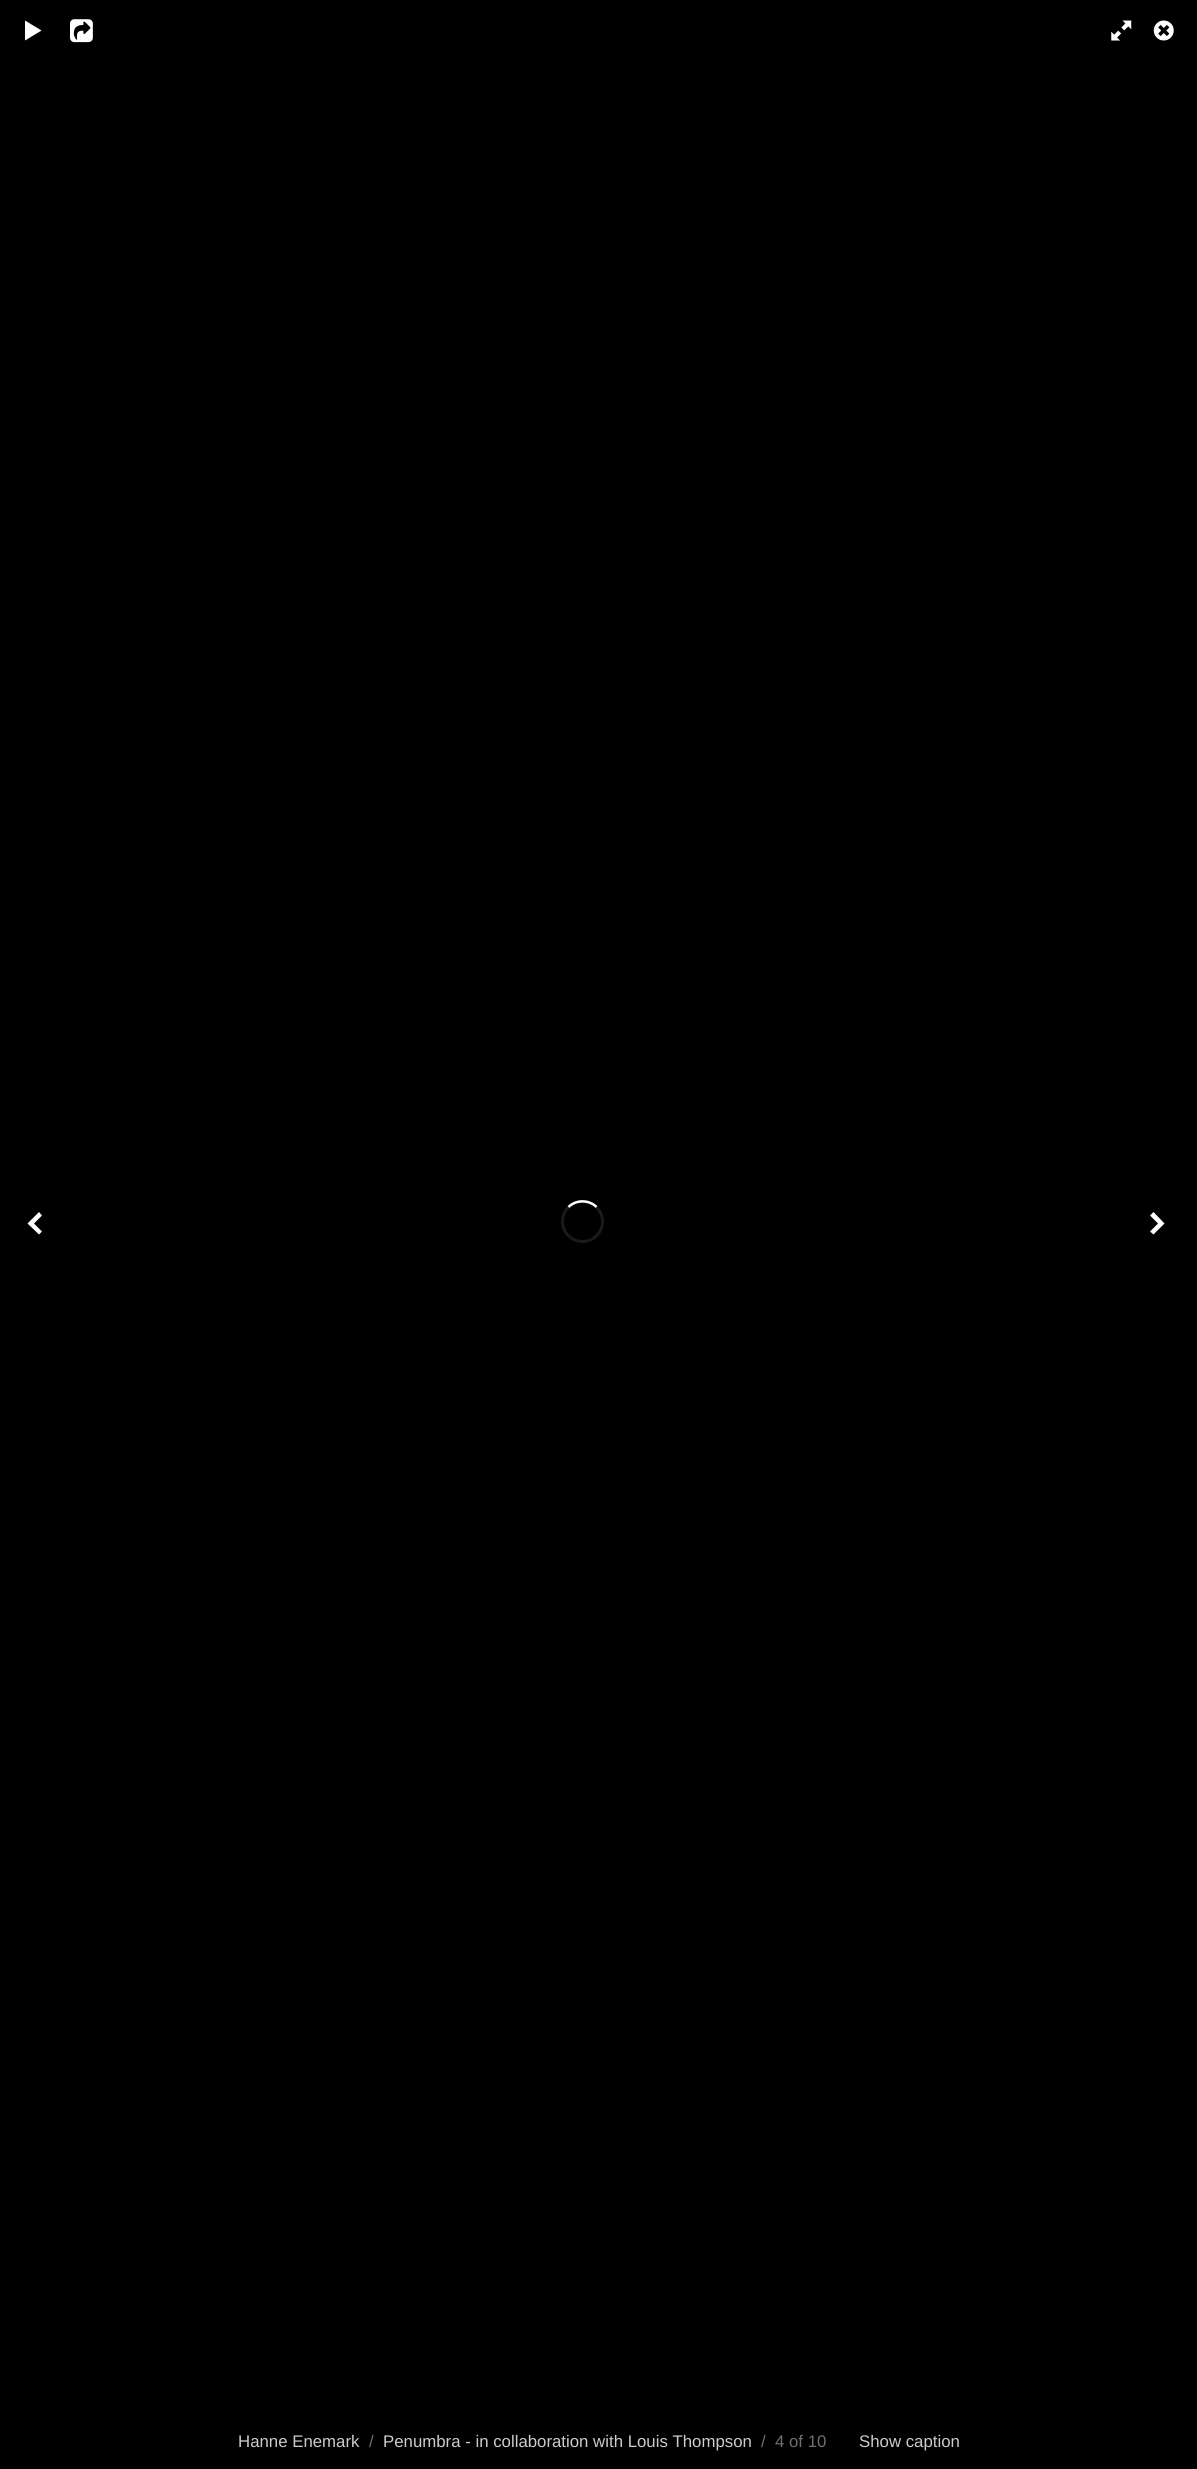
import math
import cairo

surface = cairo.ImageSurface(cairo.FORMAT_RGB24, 1197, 2469)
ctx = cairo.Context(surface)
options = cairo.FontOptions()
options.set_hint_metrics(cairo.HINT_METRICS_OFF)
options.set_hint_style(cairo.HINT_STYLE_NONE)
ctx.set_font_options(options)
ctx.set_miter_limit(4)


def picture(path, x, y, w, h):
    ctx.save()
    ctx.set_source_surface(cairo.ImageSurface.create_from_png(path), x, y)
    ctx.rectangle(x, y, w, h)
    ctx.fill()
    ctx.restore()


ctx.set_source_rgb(0, 0, 0)
ctx.paint()
ctx.set_source_rgb(1, 1, 1)
ctx.new_path()
ctx.move_to(25, 40.5)
ctx.line_to(25, 20.5)
ctx.line_to(41.5, 30.5)
ctx.close_path()
ctx.fill()
picture("img1.png", 70, 19, 23, 24)
picture("img2.png", 1111, 20, 21, 21)
picture("img3.png", 1153, 20, 21, 21)
ctx.new_path()
ctx.move_to(27.5, 1223.5)
ctx.line_to(39, 1212)
ctx.line_to(42, 1215.5)
ctx.line_to(34, 1223.5)
ctx.line_to(42, 1231.5)
ctx.line_to(39, 1234.5)
ctx.close_path()
ctx.fill()
ctx.arc(582.5, 1221.5, 20, 0, 2 * math.pi)
ctx.set_source_rgb(0.102, 0.102, 0.102)
ctx.set_line_width(3)
ctx.stroke()
ctx.new_path()
ctx.move_to(568.5, 1207)
ctx.curve_to(576, 1199.5, 589, 1199.5, 596.5, 1207)
ctx.set_source_rgb(1, 1, 1)
ctx.set_line_width(2.5)
ctx.stroke()
ctx.new_path()
ctx.move_to(1150, 1231.5)
ctx.line_to(1158, 1223.5)
ctx.line_to(1150, 1215.5)
ctx.line_to(1153.5, 1212)
ctx.line_to(1164.5, 1223.5)
ctx.line_to(1153.5, 1234.5)
ctx.close_path()
ctx.fill()
ctx.select_font_face("Liberation Sans")
ctx.set_font_size(16.8)
ctx.set_source_rgb(0.8, 0.8, 0.8)
ctx.move_to(238, 2447)
ctx.show_text("Hanne Enemark")
ctx.set_source_rgb(0.439, 0.439, 0.439)
ctx.move_to(369, 2447)
ctx.show_text("/")
ctx.set_source_rgb(0.8, 0.8, 0.8)
ctx.move_to(383, 2447)
ctx.show_text("Penumbra - in collaboration with Louis Thompson")
ctx.set_source_rgb(0.439, 0.439, 0.439)
ctx.move_to(761, 2447)
ctx.show_text("/  4 of 10")
ctx.set_source_rgb(0.8, 0.8, 0.8)
ctx.move_to(859, 2447)
ctx.show_text("Show caption")
surface.write_to_png("page.png")
